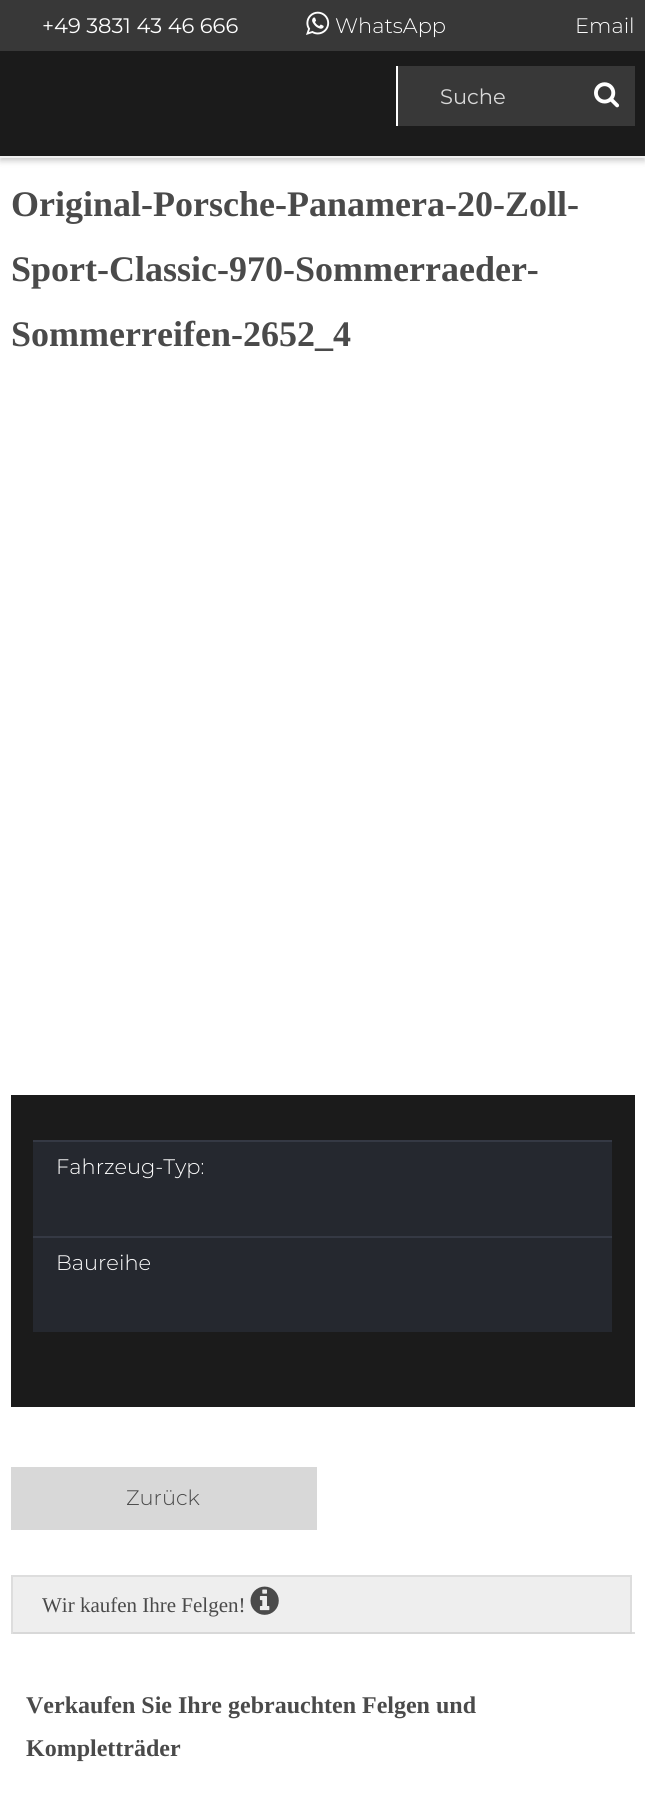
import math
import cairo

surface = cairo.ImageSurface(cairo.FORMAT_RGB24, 645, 1802)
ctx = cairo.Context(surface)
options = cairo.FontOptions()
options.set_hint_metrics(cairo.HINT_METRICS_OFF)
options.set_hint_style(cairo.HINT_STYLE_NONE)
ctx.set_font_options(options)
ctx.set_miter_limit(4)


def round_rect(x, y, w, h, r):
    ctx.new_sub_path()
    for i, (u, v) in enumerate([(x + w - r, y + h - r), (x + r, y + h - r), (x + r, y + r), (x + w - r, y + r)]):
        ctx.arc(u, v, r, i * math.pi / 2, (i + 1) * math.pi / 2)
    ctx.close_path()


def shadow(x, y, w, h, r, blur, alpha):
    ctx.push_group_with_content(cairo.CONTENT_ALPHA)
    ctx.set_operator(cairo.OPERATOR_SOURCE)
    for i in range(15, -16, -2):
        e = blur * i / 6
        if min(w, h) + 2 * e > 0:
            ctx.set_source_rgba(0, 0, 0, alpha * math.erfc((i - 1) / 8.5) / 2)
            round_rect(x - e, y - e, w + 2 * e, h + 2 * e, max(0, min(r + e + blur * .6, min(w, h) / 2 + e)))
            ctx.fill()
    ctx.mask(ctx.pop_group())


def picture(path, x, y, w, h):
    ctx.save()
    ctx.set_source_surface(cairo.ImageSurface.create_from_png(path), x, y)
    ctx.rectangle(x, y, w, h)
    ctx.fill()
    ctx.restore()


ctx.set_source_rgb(1, 1, 1)
ctx.paint()
ctx.set_source_rgb(0, 0, 0)
shadow(0, 3, 645, 158, 0, 3, 0.2)
ctx.set_source_rgb(0.106, 0.106, 0.106)
ctx.rectangle(0, 51, 645, 105)
ctx.fill()
ctx.set_source_rgb(0.941, 0.941, 0.941)
ctx.rectangle(0, 156, 645, 2)
ctx.fill()
ctx.set_source_rgb(0.22, 0.22, 0.22)
ctx.rectangle(0, 0, 645, 51)
ctx.fill()
ctx.select_font_face("Montserrat")
ctx.set_font_size(21)
ctx.set_source_rgb(1, 1, 1)
ctx.move_to(42, 33)
ctx.show_text("+49 3831 43 46 666")
picture("img1.png", 306, 11, 24, 24)
ctx.select_font_face("Montserrat Light")
ctx.move_to(335, 33)
ctx.show_text("WhatsApp")
ctx.move_to(575, 33)
ctx.show_text("Email")
ctx.set_source_rgb(0.22, 0.22, 0.22)
ctx.rectangle(398, 66, 237, 60)
ctx.fill()
ctx.set_source_rgb(1, 1, 1)
ctx.rectangle(396, 66, 2, 60)
ctx.fill()
ctx.select_font_face("Montserrat")
ctx.set_source_rgb(0.847, 0.847, 0.847)
ctx.move_to(440, 104)
ctx.show_text("Suche")
picture("img2.png", 594, 82, 26, 26)
ctx.select_font_face("Liberation Serif", cairo.FONT_SLANT_NORMAL, cairo.FONT_WEIGHT_BOLD)
ctx.set_font_size(36)
ctx.set_source_rgb(0.29, 0.29, 0.29)
ctx.move_to(11, 216)
ctx.show_text("Original-Porsche-Panamera-20-Zoll-")
ctx.move_to(11, 281)
ctx.show_text("Sport-Classic-970-Sommerraeder-")
ctx.move_to(11, 346)
ctx.show_text("Sommerreifen-2652_4")
ctx.set_source_rgb(0.106, 0.106, 0.106)
ctx.rectangle(11, 1095, 624, 312)
ctx.fill()
ctx.set_source_rgb(0.145, 0.157, 0.184)
ctx.rectangle(33, 1142, 579, 190)
ctx.fill()
ctx.set_source_rgb(0.208, 0.224, 0.267)
ctx.rectangle(33, 1140, 579, 2)
ctx.fill()
ctx.select_font_face("Montserrat Light")
ctx.set_font_size(21)
ctx.set_source_rgb(1, 1, 1)
ctx.move_to(56, 1174)
ctx.show_text("Fahrzeug-Typ:")
ctx.set_source_rgb(0.208, 0.224, 0.267)
ctx.rectangle(33, 1236, 579, 2)
ctx.fill()
ctx.set_source_rgb(1, 1, 1)
ctx.move_to(56, 1270)
ctx.show_text("Baureihe")
ctx.set_source_rgb(0.847, 0.847, 0.847)
ctx.rectangle(11, 1467, 306, 63)
ctx.fill()
ctx.set_source_rgb(0.29, 0.29, 0.29)
ctx.move_to(126, 1505)
ctx.show_text("Zurück")
ctx.set_source_rgb(0.867, 0.867, 0.867)
ctx.rectangle(632, 1632, 3, 2)
ctx.fill()
ctx.set_source_rgb(0.933, 0.933, 0.933)
ctx.rectangle(13, 1577, 617, 55)
ctx.fill()
ctx.set_source_rgb(0.867, 0.867, 0.867)
ctx.rectangle(11, 1575, 621, 2)
ctx.fill()
ctx.rectangle(630, 1575, 2, 59)
ctx.fill()
ctx.set_source_rgb(0.847, 0.847, 0.847)
ctx.rectangle(11, 1632, 621, 2)
ctx.fill()
ctx.set_source_rgb(0.867, 0.867, 0.867)
ctx.rectangle(11, 1575, 2, 59)
ctx.fill()
ctx.select_font_face("Liberation Serif")
ctx.set_source_rgb(0.29, 0.29, 0.29)
ctx.move_to(42, 1612)
ctx.show_text("Wir kaufen Ihre Felgen!")
picture("img3.png", 250, 1586, 29, 29)
ctx.select_font_face("Liberation Serif", cairo.FONT_SLANT_NORMAL, cairo.FONT_WEIGHT_BOLD)
ctx.set_font_size(24)
ctx.move_to(26, 1713)
ctx.show_text("Verkaufen Sie Ihre gebrauchten Felgen und")
ctx.move_to(26, 1756)
ctx.show_text("Kompletträder")
surface.write_to_png("page.png")
